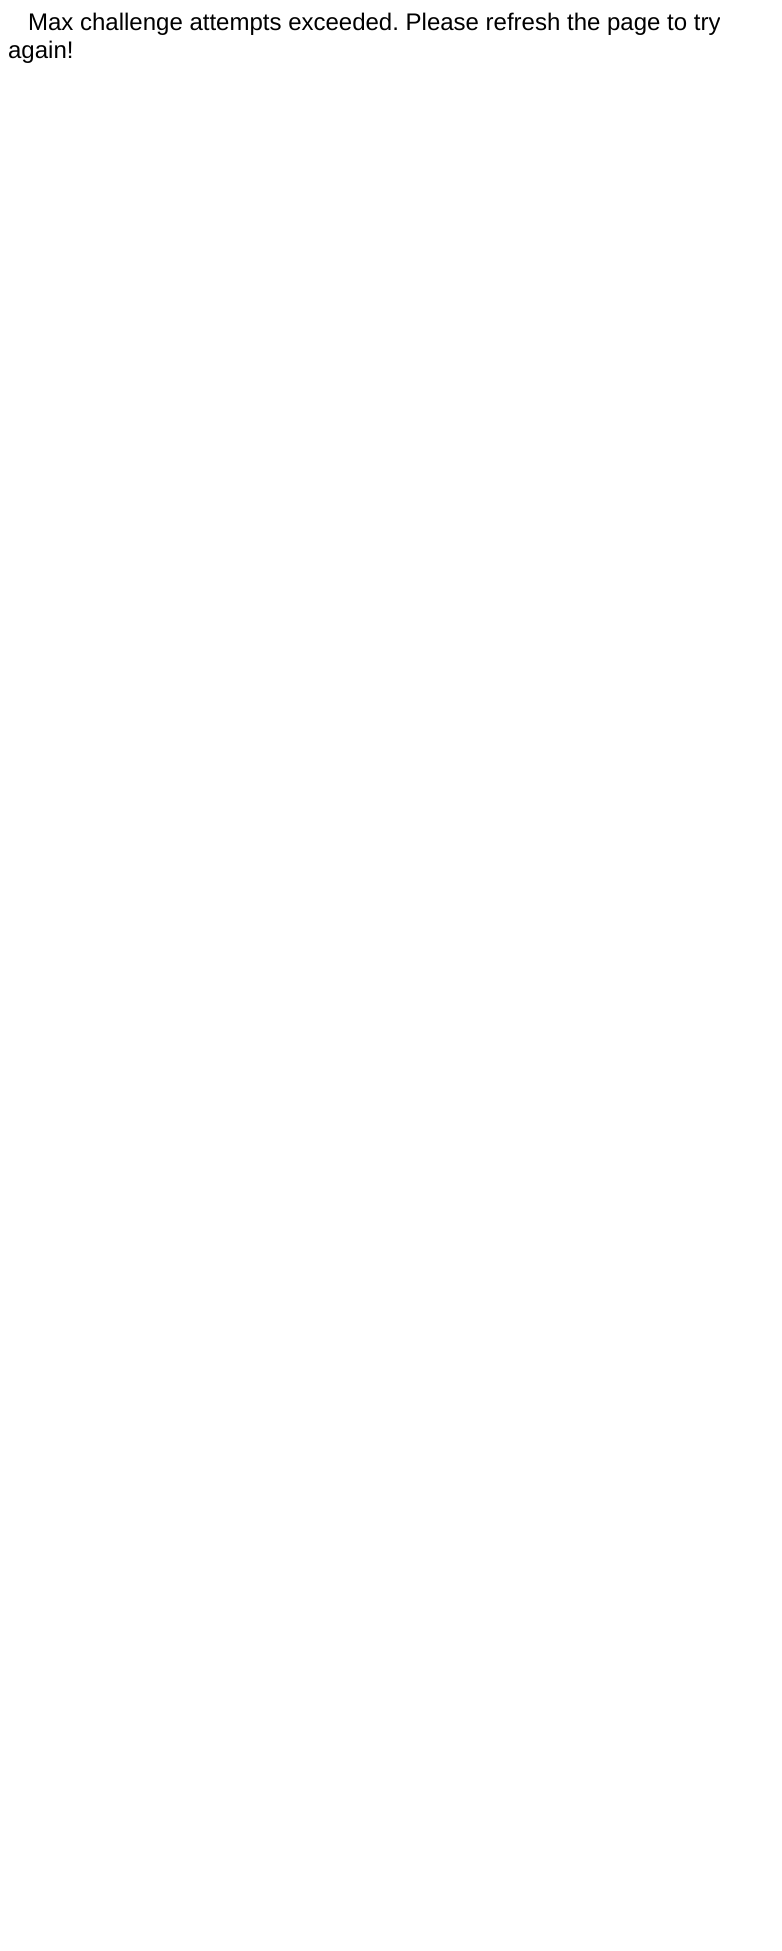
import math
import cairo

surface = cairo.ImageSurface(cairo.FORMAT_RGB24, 782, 1951)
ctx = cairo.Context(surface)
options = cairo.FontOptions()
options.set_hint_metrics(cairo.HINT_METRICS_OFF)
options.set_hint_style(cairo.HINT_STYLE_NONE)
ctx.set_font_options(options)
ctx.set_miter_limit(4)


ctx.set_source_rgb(1, 1, 1)
ctx.paint()
ctx.select_font_face("Liberation Sans")
ctx.set_font_size(24)
ctx.set_source_rgb(0, 0, 0)
ctx.move_to(28, 30)
ctx.show_text("Max challenge attempts exceeded. Please refresh the page to try")
ctx.move_to(8, 58)
ctx.show_text("again!")
surface.write_to_png("page.png")
